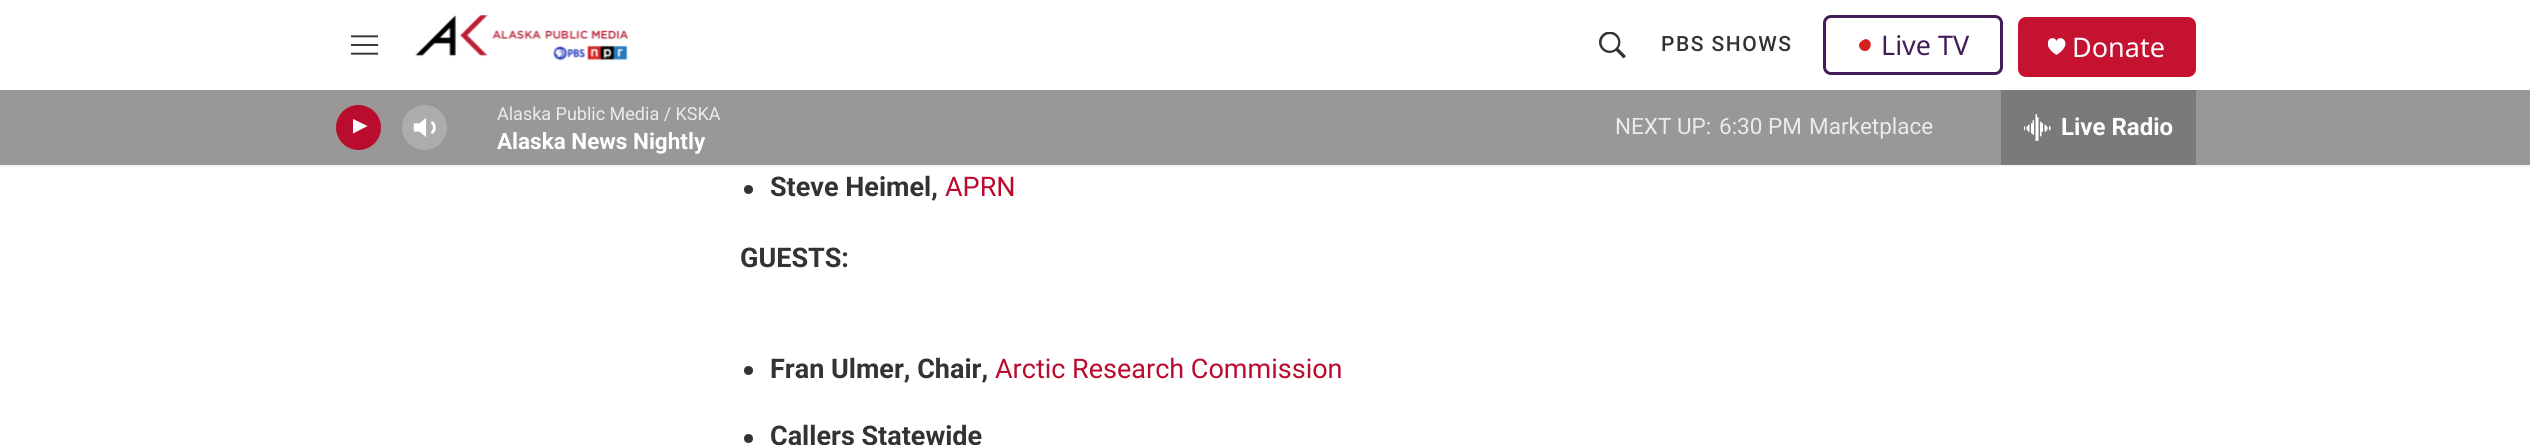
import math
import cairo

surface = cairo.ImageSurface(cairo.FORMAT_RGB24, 2530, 445)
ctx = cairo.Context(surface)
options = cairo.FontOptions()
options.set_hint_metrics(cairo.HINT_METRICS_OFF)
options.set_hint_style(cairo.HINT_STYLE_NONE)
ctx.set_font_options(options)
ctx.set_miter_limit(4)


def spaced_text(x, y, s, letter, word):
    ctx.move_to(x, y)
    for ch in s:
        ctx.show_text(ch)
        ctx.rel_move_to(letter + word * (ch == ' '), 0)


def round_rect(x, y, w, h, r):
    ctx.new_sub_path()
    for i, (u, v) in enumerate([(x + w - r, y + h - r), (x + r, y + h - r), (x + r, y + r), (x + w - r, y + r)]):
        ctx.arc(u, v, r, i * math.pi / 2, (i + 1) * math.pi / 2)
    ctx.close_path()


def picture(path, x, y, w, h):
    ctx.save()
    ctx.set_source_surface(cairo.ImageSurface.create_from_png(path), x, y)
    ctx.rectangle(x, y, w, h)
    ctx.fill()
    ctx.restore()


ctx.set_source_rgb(1, 1, 1)
ctx.paint()
ctx.set_source_rgb(0.961, 0.961, 0.961)
ctx.rectangle(0, 165, 2530, 2)
ctx.fill()
picture("img1.png", 351, 35, 27, 20)
picture("img2.png", 415, 15, 214, 46)
picture("img3.png", 1599, 32, 27, 27)
ctx.select_font_face("Roboto Medium")
ctx.set_font_size(21)
ctx.set_source_rgb(0.2, 0.2, 0.2)
spaced_text(1661, 51, "PBS SHOWS", 1.5, 0)
round_rect(1824.5, 16.5, 177, 57, 6.5)
ctx.set_source_rgb(0.255, 0.11, 0.345)
ctx.set_line_width(3)
ctx.stroke()
ctx.set_source_rgb(0.839, 0.125, 0.129)
ctx.new_path()
ctx.move_to(1866, 39)
ctx.curve_to(1874.5, 40.5, 1870.5, 54, 1862.5, 50.5)
ctx.curve_to(1861, 50, 1859.5, 48, 1859, 46)
ctx.curve_to(1858.5, 42.5, 1863, 39.5, 1866, 39)
ctx.close_path()
ctx.fill()
ctx.select_font_face("Noto Sans")
ctx.set_font_size(27)
ctx.set_source_rgb(0.255, 0.11, 0.345)
ctx.move_to(1881, 55)
ctx.show_text("Live TV")
ctx.set_source_rgb(0.769, 0.071, 0.188)
round_rect(2018, 17, 178, 60, 8)
ctx.fill()
ctx.save()
ctx.rectangle(2048, 38, 18, 18)
ctx.clip()
ctx.set_source_rgb(1, 1, 1)
ctx.new_path()
ctx.move_to(2056.5, 41)
ctx.curve_to(2053.5, 33, 2038, 43, 2056.5, 55)
ctx.curve_to(2075, 43, 2059.5, 33, 2056.5, 41)
ctx.close_path()
ctx.fill()
ctx.restore()
ctx.set_source_rgb(1, 1, 1)
ctx.move_to(2072, 57)
ctx.show_text("Donate")
ctx.set_source_rgb(0.604, 0.596, 0.588)
ctx.rectangle(0, 90, 2530, 75)
ctx.fill()
ctx.set_source_rgb(0.729, 0.047, 0.184)
ctx.arc(358.5, 127.5, 22.5, 0, 2 * math.pi)
ctx.fill()
ctx.set_source_rgb(1, 1, 1)
ctx.new_path()
ctx.move_to(353, 119)
ctx.line_to(367.5, 126)
ctx.line_to(353, 133.5)
ctx.close_path()
ctx.fill()
picture("img4.png", 413, 118, 23, 19)
ctx.set_source_rgba(1, 1, 1, 0.2)
ctx.arc(424.5, 127.5, 22.5, 0, 2 * math.pi)
ctx.fill()
ctx.select_font_face("Roboto")
ctx.set_font_size(18)
ctx.set_source_rgb(0.922, 0.918, 0.918)
ctx.move_to(497, 120)
ctx.show_text("Alaska Public Media / KSKA")
ctx.select_font_face("Roboto", cairo.FONT_SLANT_NORMAL, cairo.FONT_WEIGHT_BOLD)
ctx.set_font_size(22.5)
ctx.set_source_rgb(1, 1, 1)
ctx.move_to(497, 149)
ctx.show_text("Alaska News Nightly")
ctx.select_font_face("Roboto")
ctx.set_source_rgb(0.922, 0.918, 0.918)
ctx.move_to(1615, 134)
ctx.show_text("NEXT UP:")
ctx.move_to(1719, 134)
ctx.show_text("6:30 PM")
ctx.move_to(1809, 134)
ctx.show_text("Marketplace")
ctx.set_source_rgb(0.482, 0.478, 0.471)
ctx.rectangle(2001, 90, 195, 75)
ctx.fill()
picture("img5.png", 2024, 114, 27, 27)
ctx.select_font_face("Roboto", cairo.FONT_SLANT_NORMAL, cairo.FONT_WEIGHT_BOLD)
ctx.set_font_size(24)
ctx.set_source_rgb(1, 1, 1)
ctx.move_to(2061, 135)
ctx.show_text("Live Radio")
ctx.set_source_rgb(0.2, 0.2, 0.2)
ctx.new_path()
ctx.arc(748.5, 189.5, 4.5, 0, 2 * math.pi)
ctx.fill()
ctx.set_font_size(27)
ctx.move_to(770, 196)
ctx.show_text("Steve Heimel,")
ctx.select_font_face("Roboto")
ctx.set_source_rgb(0.729, 0.047, 0.184)
ctx.move_to(945, 196)
ctx.show_text("APRN")
ctx.select_font_face("Roboto", cairo.FONT_SLANT_NORMAL, cairo.FONT_WEIGHT_BOLD)
ctx.set_source_rgb(0.2, 0.2, 0.2)
ctx.move_to(740, 267)
ctx.show_text("GUESTS:")
ctx.new_path()
ctx.arc(748.5, 370.5, 4.5, 0, 2 * math.pi)
ctx.fill()
ctx.move_to(770, 378)
ctx.show_text("Fran Ulmer, Chair,")
ctx.select_font_face("Roboto")
ctx.set_source_rgb(0.729, 0.047, 0.184)
ctx.move_to(995, 378)
ctx.show_text("Arctic Research Commission")
ctx.set_source_rgb(0.2, 0.2, 0.2)
ctx.new_path()
ctx.arc(748.5, 438.5, 4.5, 0, 2 * math.pi)
ctx.fill()
ctx.select_font_face("Roboto", cairo.FONT_SLANT_NORMAL, cairo.FONT_WEIGHT_BOLD)
ctx.move_to(770, 445)
ctx.show_text("Callers Statewide")
surface.write_to_png("page.png")
